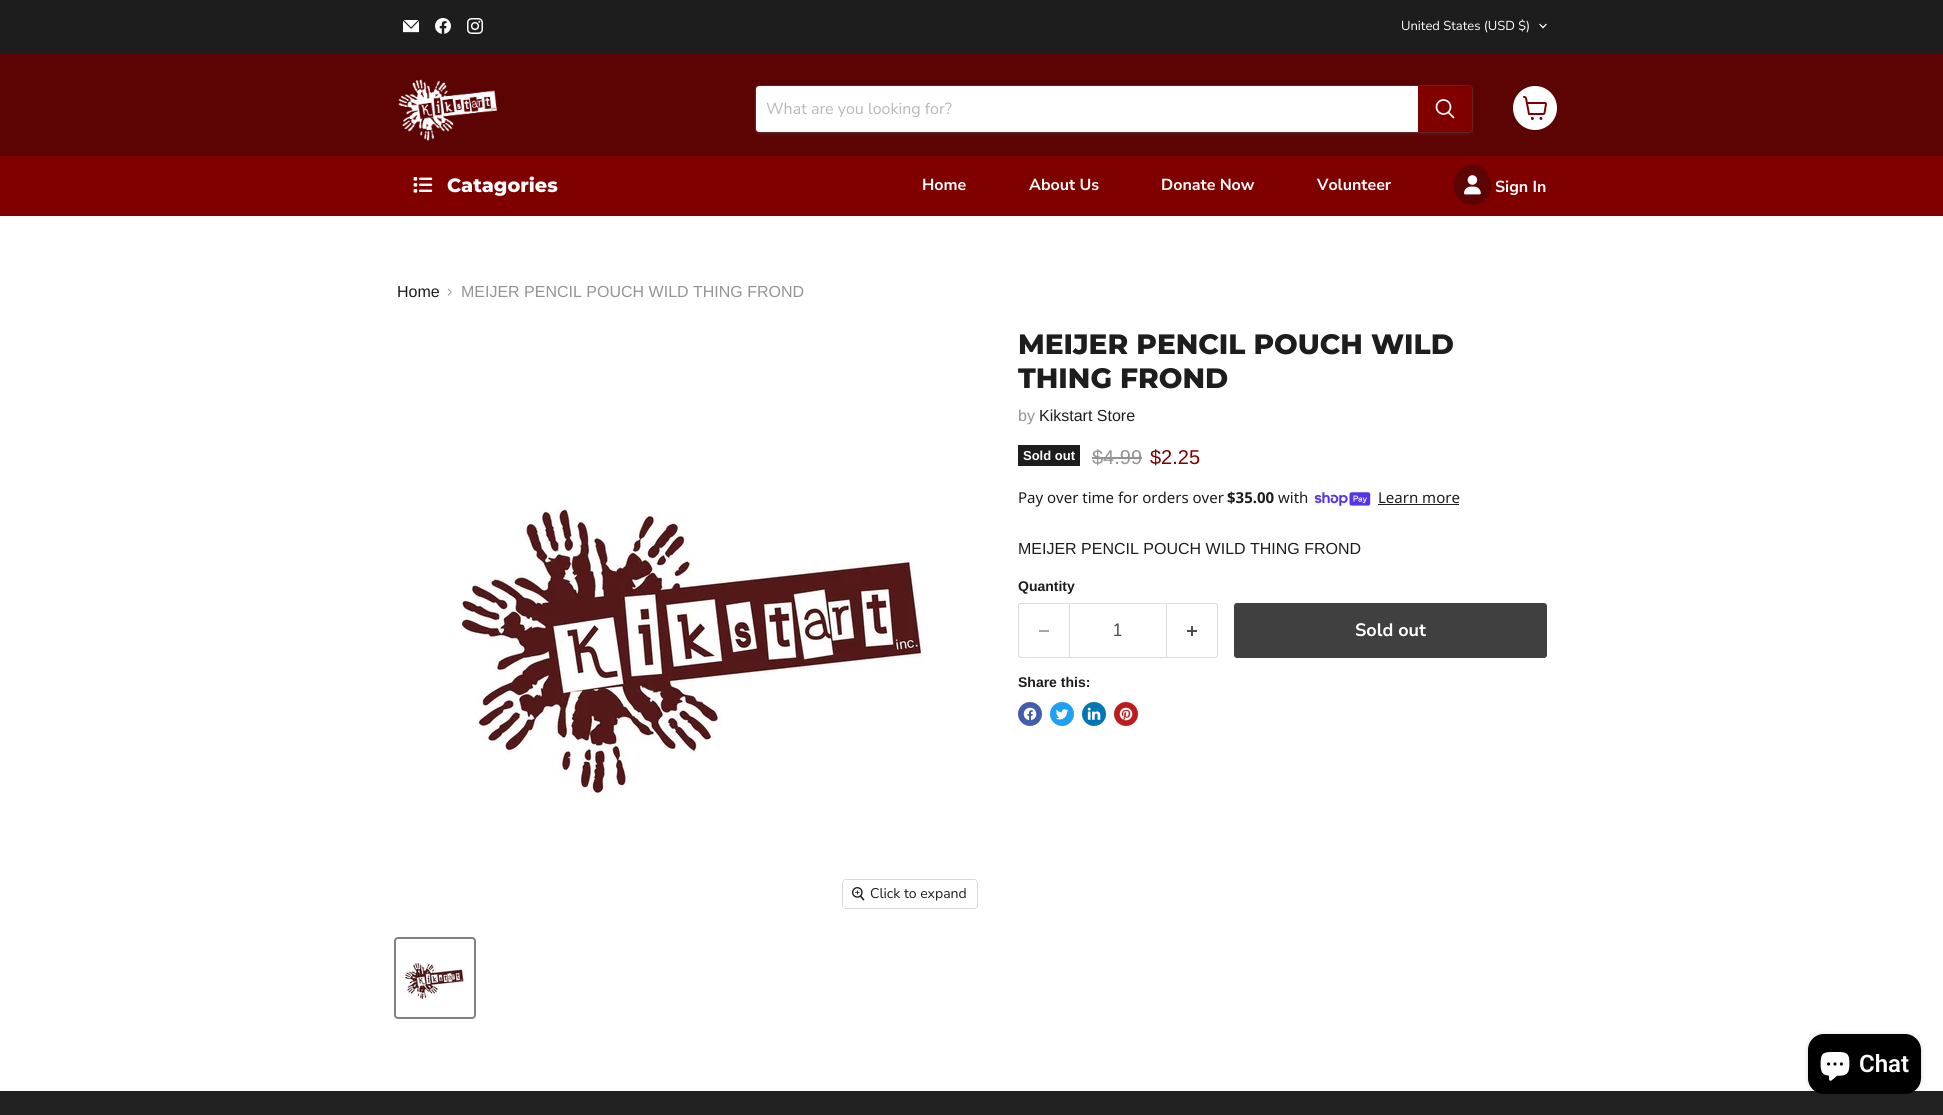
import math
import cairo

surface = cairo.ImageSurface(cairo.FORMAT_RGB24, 1943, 1115)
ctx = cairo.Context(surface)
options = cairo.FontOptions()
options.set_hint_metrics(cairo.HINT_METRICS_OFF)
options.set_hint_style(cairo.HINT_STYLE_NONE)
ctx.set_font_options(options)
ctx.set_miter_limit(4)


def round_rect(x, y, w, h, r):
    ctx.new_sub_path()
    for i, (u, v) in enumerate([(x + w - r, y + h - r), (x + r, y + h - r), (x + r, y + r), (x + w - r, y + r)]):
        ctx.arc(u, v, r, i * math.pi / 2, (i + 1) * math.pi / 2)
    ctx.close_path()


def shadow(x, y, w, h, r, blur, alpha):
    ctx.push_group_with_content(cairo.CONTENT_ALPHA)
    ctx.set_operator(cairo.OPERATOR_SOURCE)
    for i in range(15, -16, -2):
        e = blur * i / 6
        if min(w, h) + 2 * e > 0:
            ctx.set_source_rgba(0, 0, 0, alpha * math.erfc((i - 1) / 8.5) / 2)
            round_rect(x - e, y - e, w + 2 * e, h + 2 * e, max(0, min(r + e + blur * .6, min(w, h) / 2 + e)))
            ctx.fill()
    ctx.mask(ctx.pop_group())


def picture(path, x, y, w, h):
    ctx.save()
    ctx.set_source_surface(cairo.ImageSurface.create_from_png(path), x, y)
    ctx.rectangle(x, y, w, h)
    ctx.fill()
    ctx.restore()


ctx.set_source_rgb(1, 1, 1)
ctx.paint()
ctx.set_source_rgb(0.114, 0.114, 0.114)
ctx.rectangle(0, 0, 1943, 53)
ctx.fill()
picture("img1.png", 403, 20, 16, 13)
picture("img2.png", 435, 18, 16, 16)
picture("img3.png", 467, 18, 16, 16)
ctx.select_font_face("Nunito Sans")
ctx.set_font_size(13)
ctx.set_source_rgb(1, 1, 1)
ctx.move_to(1401, 30)
ctx.show_text("United States (USD $)")
picture("img4.png", 1539, 23, 8, 6)
ctx.set_source_rgb(0.361, 0.012, 0.012)
ctx.rectangle(0, 53, 1943, 103)
ctx.fill()
picture("img5.png", 398, 79, 99, 62)
ctx.set_source_rgb(0.502, 0.502, 0.502)
shadow(755, 87, 718, 48, 4, 1.5, 0.11)
round_rect(755.5, 85.5, 717, 47, 3.5)
ctx.set_source_rgba(0.502, 0.502, 0.502, 0.2)
ctx.set_line_width(1)
ctx.stroke()
ctx.set_source_rgb(1, 1, 1)
ctx.new_path()
ctx.move_to(759, 86)
ctx.line_to(1418, 86)
ctx.line_to(1418, 132)
ctx.line_to(759, 132)
ctx.curve_to(757.5, 132, 756, 130.5, 756, 129)
ctx.line_to(756, 89)
ctx.curve_to(756, 87.5, 757.5, 86, 759, 86)
ctx.close_path()
ctx.fill()
ctx.set_font_size(16)
ctx.set_source_rgb(0.722, 0.722, 0.722)
ctx.move_to(766, 114)
ctx.show_text("What are you looking for?")
ctx.set_source_rgb(0.502, 0, 0)
ctx.new_path()
ctx.move_to(1418.5, 86.5)
ctx.line_to(1469, 86.5)
ctx.curve_to(1470.5, 86.5, 1471.5, 87.5, 1471.5, 89)
ctx.line_to(1471.5, 129)
ctx.curve_to(1471.5, 130.5, 1470.5, 131.5, 1469, 131.5)
ctx.line_to(1418.5, 131.5)
ctx.close_path()
ctx.fill_preserve()
ctx.stroke()
ctx.new_path()
ctx.move_to(1453.5, 117.5)
ctx.line_to(1448.5, 112.5)
ctx.set_source_rgb(1, 1, 1)
ctx.set_line_width(1.7)
ctx.set_line_cap(cairo.LINE_CAP_ROUND)
ctx.stroke()
ctx.arc(1443.5, 107, 7, 0, 2 * math.pi)
ctx.set_line_cap(cairo.LINE_CAP_BUTT)
ctx.stroke()
ctx.arc(1535, 108, 22, 0, 2 * math.pi)
ctx.fill()
picture("img6.png", 1523, 96, 24, 24)
ctx.set_source_rgb(0.502, 0, 0)
ctx.rectangle(0, 156, 1943, 60)
ctx.fill()
picture("img7.png", 413, 177, 20, 16)
ctx.select_font_face("Montserrat ExtraBold")
ctx.set_font_size(19.25)
ctx.set_source_rgb(1, 1, 1)
ctx.move_to(447, 192)
ctx.show_text("Catagories")
ctx.select_font_face("Nunito Sans", cairo.FONT_SLANT_NORMAL, cairo.FONT_WEIGHT_BOLD)
ctx.set_font_size(16)
ctx.move_to(922, 190)
ctx.show_text("Home")
ctx.move_to(1029, 190)
ctx.show_text("About Us")
ctx.move_to(1161, 190)
ctx.show_text("Donate Now")
ctx.move_to(1317, 190)
ctx.show_text("Volunteer")
ctx.set_source_rgb(0.361, 0.012, 0.012)
round_rect(1454, 165, 37, 40, 18.5)
ctx.fill()
picture("img8.png", 1464, 175, 17, 20)
ctx.set_source_rgb(1, 1, 1)
ctx.move_to(1495, 192)
ctx.show_text("Sign In")
ctx.select_font_face("Liberation Sans")
ctx.set_source_rgb(0.114, 0.114, 0.114)
ctx.move_to(397, 297)
ctx.show_text("Home")
picture("img9.png", 447, 288, 5, 8)
ctx.set_source_rgb(0.58, 0.58, 0.58)
ctx.move_to(461, 297)
ctx.show_text("MEIJER PENCIL POUCH WILD THING FROND")
ctx.select_font_face("Montserrat ExtraBold")
ctx.set_font_size(28)
ctx.set_source_rgb(0.114, 0.114, 0.114)
ctx.move_to(1018, 354)
ctx.show_text("MEIJER PENCIL POUCH WILD")
ctx.move_to(1018, 388)
ctx.show_text("THING FROND")
ctx.select_font_face("Liberation Sans")
ctx.set_font_size(16)
ctx.set_source_rgb(0.58, 0.58, 0.58)
ctx.move_to(1018, 421)
ctx.show_text("by")
ctx.set_source_rgb(0.114, 0.114, 0.114)
ctx.move_to(1039, 421)
ctx.show_text("Kikstart Store")
ctx.rectangle(1018, 445, 62, 21)
ctx.fill()
ctx.select_font_face("Liberation Sans", cairo.FONT_SLANT_NORMAL, cairo.FONT_WEIGHT_BOLD)
ctx.set_font_size(13)
ctx.set_source_rgb(1, 1, 1)
ctx.move_to(1023, 460)
ctx.show_text("Sold out")
ctx.select_font_face("Liberation Sans")
ctx.set_font_size(20)
ctx.set_source_rgb(0.58, 0.58, 0.58)
ctx.move_to(1092, 464)
ctx.show_text("$4.99")
ctx.rectangle(1092, 457, 50, 2)
ctx.fill()
ctx.set_source_rgb(0.502, 0, 0)
ctx.move_to(1150, 464)
ctx.show_text("$2.25")
ctx.select_font_face("Noto Sans")
ctx.set_font_size(15)
ctx.set_source_rgb(0.114, 0.114, 0.114)
ctx.move_to(1018, 503)
ctx.show_text("Pay over time for orders over")
ctx.select_font_face("Noto Sans", cairo.FONT_SLANT_NORMAL, cairo.FONT_WEIGHT_BOLD)
ctx.move_to(1227, 503)
ctx.show_text("$35.00")
ctx.select_font_face("Noto Sans")
ctx.move_to(1278, 503)
ctx.show_text("with")
picture("img10.png", 1314, 492, 57, 14)
ctx.move_to(1378, 503)
ctx.show_text("Learn more")
ctx.rectangle(1378, 504, 81, 1)
ctx.fill()
ctx.select_font_face("Liberation Sans")
ctx.set_font_size(16)
ctx.move_to(1018, 554)
ctx.show_text("MEIJER PENCIL POUCH WILD THING FROND")
ctx.select_font_face("Liberation Sans", cairo.FONT_SLANT_NORMAL, cairo.FONT_WEIGHT_BOLD)
ctx.set_font_size(14)
ctx.move_to(1018, 591)
ctx.show_text("Quantity")
ctx.set_source_rgb(0.867, 0.867, 0.867)
ctx.set_fill_rule(cairo.FILL_RULE_EVEN_ODD)
ctx.new_path()
ctx.move_to(1021, 603)
ctx.line_to(1069, 603)
ctx.line_to(1069, 658)
ctx.line_to(1021, 658)
ctx.curve_to(1019, 658, 1018, 657, 1018, 655)
ctx.line_to(1018, 606)
ctx.curve_to(1018, 604, 1019, 603, 1021, 603)
ctx.close_path()
ctx.move_to(1021, 604)
ctx.line_to(1069, 604)
ctx.line_to(1069, 657)
ctx.line_to(1029, 657)
ctx.curve_to(1025, 657, 1019, 658, 1019, 655)
ctx.line_to(1019, 605)
ctx.close_path()
ctx.fill()
ctx.set_source_rgb(0.651, 0.651, 0.651)
ctx.rectangle(1039, 630, 10, 2)
ctx.fill()
ctx.rectangle(1069.5, 603.5, 97, 54)
ctx.set_source_rgb(0.867, 0.867, 0.867)
ctx.set_line_width(1)
ctx.stroke()
ctx.select_font_face("Nunito Sans")
ctx.set_font_size(18)
ctx.set_source_rgb(0.302, 0.302, 0.302)
ctx.move_to(1112, 636)
ctx.show_text("1")
ctx.set_source_rgb(0.867, 0.867, 0.867)
ctx.new_path()
ctx.move_to(1167, 603)
ctx.line_to(1215, 603)
ctx.curve_to(1217, 603, 1218, 604, 1218, 606)
ctx.line_to(1218, 655)
ctx.curve_to(1218, 657, 1217, 658, 1215, 658)
ctx.line_to(1167, 658)
ctx.close_path()
ctx.move_to(1167, 604)
ctx.line_to(1215, 604)
ctx.curve_to(1216, 604, 1217, 605, 1217, 606)
ctx.line_to(1217, 655)
ctx.curve_to(1217, 656, 1216, 657, 1215, 657)
ctx.line_to(1167, 657)
ctx.close_path()
ctx.fill()
picture("img11.png", 1187, 626, 10, 10)
ctx.set_source_rgb(0.251, 0.251, 0.251)
round_rect(1234.5, 603.5, 312, 54, 2.5)
ctx.fill_preserve()
ctx.stroke()
ctx.select_font_face("Nunito Sans", cairo.FONT_SLANT_NORMAL, cairo.FONT_WEIGHT_BOLD)
ctx.set_source_rgb(1, 1, 1)
ctx.move_to(1355, 636)
ctx.show_text("Sold out")
ctx.select_font_face("Liberation Sans", cairo.FONT_SLANT_NORMAL, cairo.FONT_WEIGHT_BOLD)
ctx.set_font_size(14)
ctx.set_source_rgb(0.114, 0.114, 0.114)
ctx.move_to(1018, 687)
ctx.show_text("Share this:")
ctx.set_source_rgb(0.259, 0.365, 0.671)
ctx.new_path()
ctx.arc(1030, 714, 12, 0, 2 * math.pi)
ctx.fill()
picture("img12.png", 1023, 707, 14, 14)
ctx.set_source_rgb(0.114, 0.631, 0.949)
ctx.arc(1062, 714, 12, 0, 2 * math.pi)
ctx.fill()
picture("img13.png", 1056, 709, 13, 11)
ctx.set_source_rgb(0, 0.467, 0.71)
ctx.arc(1094, 714, 12, 0, 2 * math.pi)
ctx.fill()
picture("img14.png", 1087, 707, 14, 13)
ctx.set_source_rgb(0.741, 0.11, 0.11)
ctx.arc(1126, 714, 12, 0, 2 * math.pi)
ctx.fill()
picture("img15.png", 1119, 707, 14, 14)
picture("img16.png", 459, 506, 466, 290)
round_rect(842.5, 879.5, 135, 29, 3.5)
ctx.set_source_rgb(0.851, 0.851, 0.851)
ctx.stroke()
ctx.set_source_rgba(1, 1, 1, 0.9)
round_rect(843, 880, 134, 28, 3)
ctx.fill()
picture("img17.png", 852, 887, 13, 14)
ctx.select_font_face("Nunito Sans")
ctx.set_source_rgb(0.114, 0.114, 0.114)
ctx.move_to(870, 898)
ctx.show_text("Click to expand")
round_rect(395, 938, 80, 80, 3)
ctx.set_source_rgb(0.506, 0.506, 0.506)
ctx.set_line_width(2)
ctx.stroke()
picture("img18.png", 405, 962, 63, 38)
ctx.set_source_rgb(0.133, 0.133, 0.133)
ctx.rectangle(0, 1091, 1943, 24)
ctx.fill()
ctx.set_source_rgb(0, 0, 0)
shadow(1808, 1034, 113, 60, 16, 2.5, 0.15)
ctx.set_source_rgb(0, 0, 0)
round_rect(1808, 1034, 113, 60, 16)
ctx.fill()
picture("img19.png", 1820, 1052, 30, 29)
ctx.select_font_face("Roboto SemiBold")
ctx.set_font_size(24)
ctx.set_source_rgb(1, 1, 1)
ctx.move_to(1859, 1072)
ctx.show_text("Chat")
surface.write_to_png("page.png")
